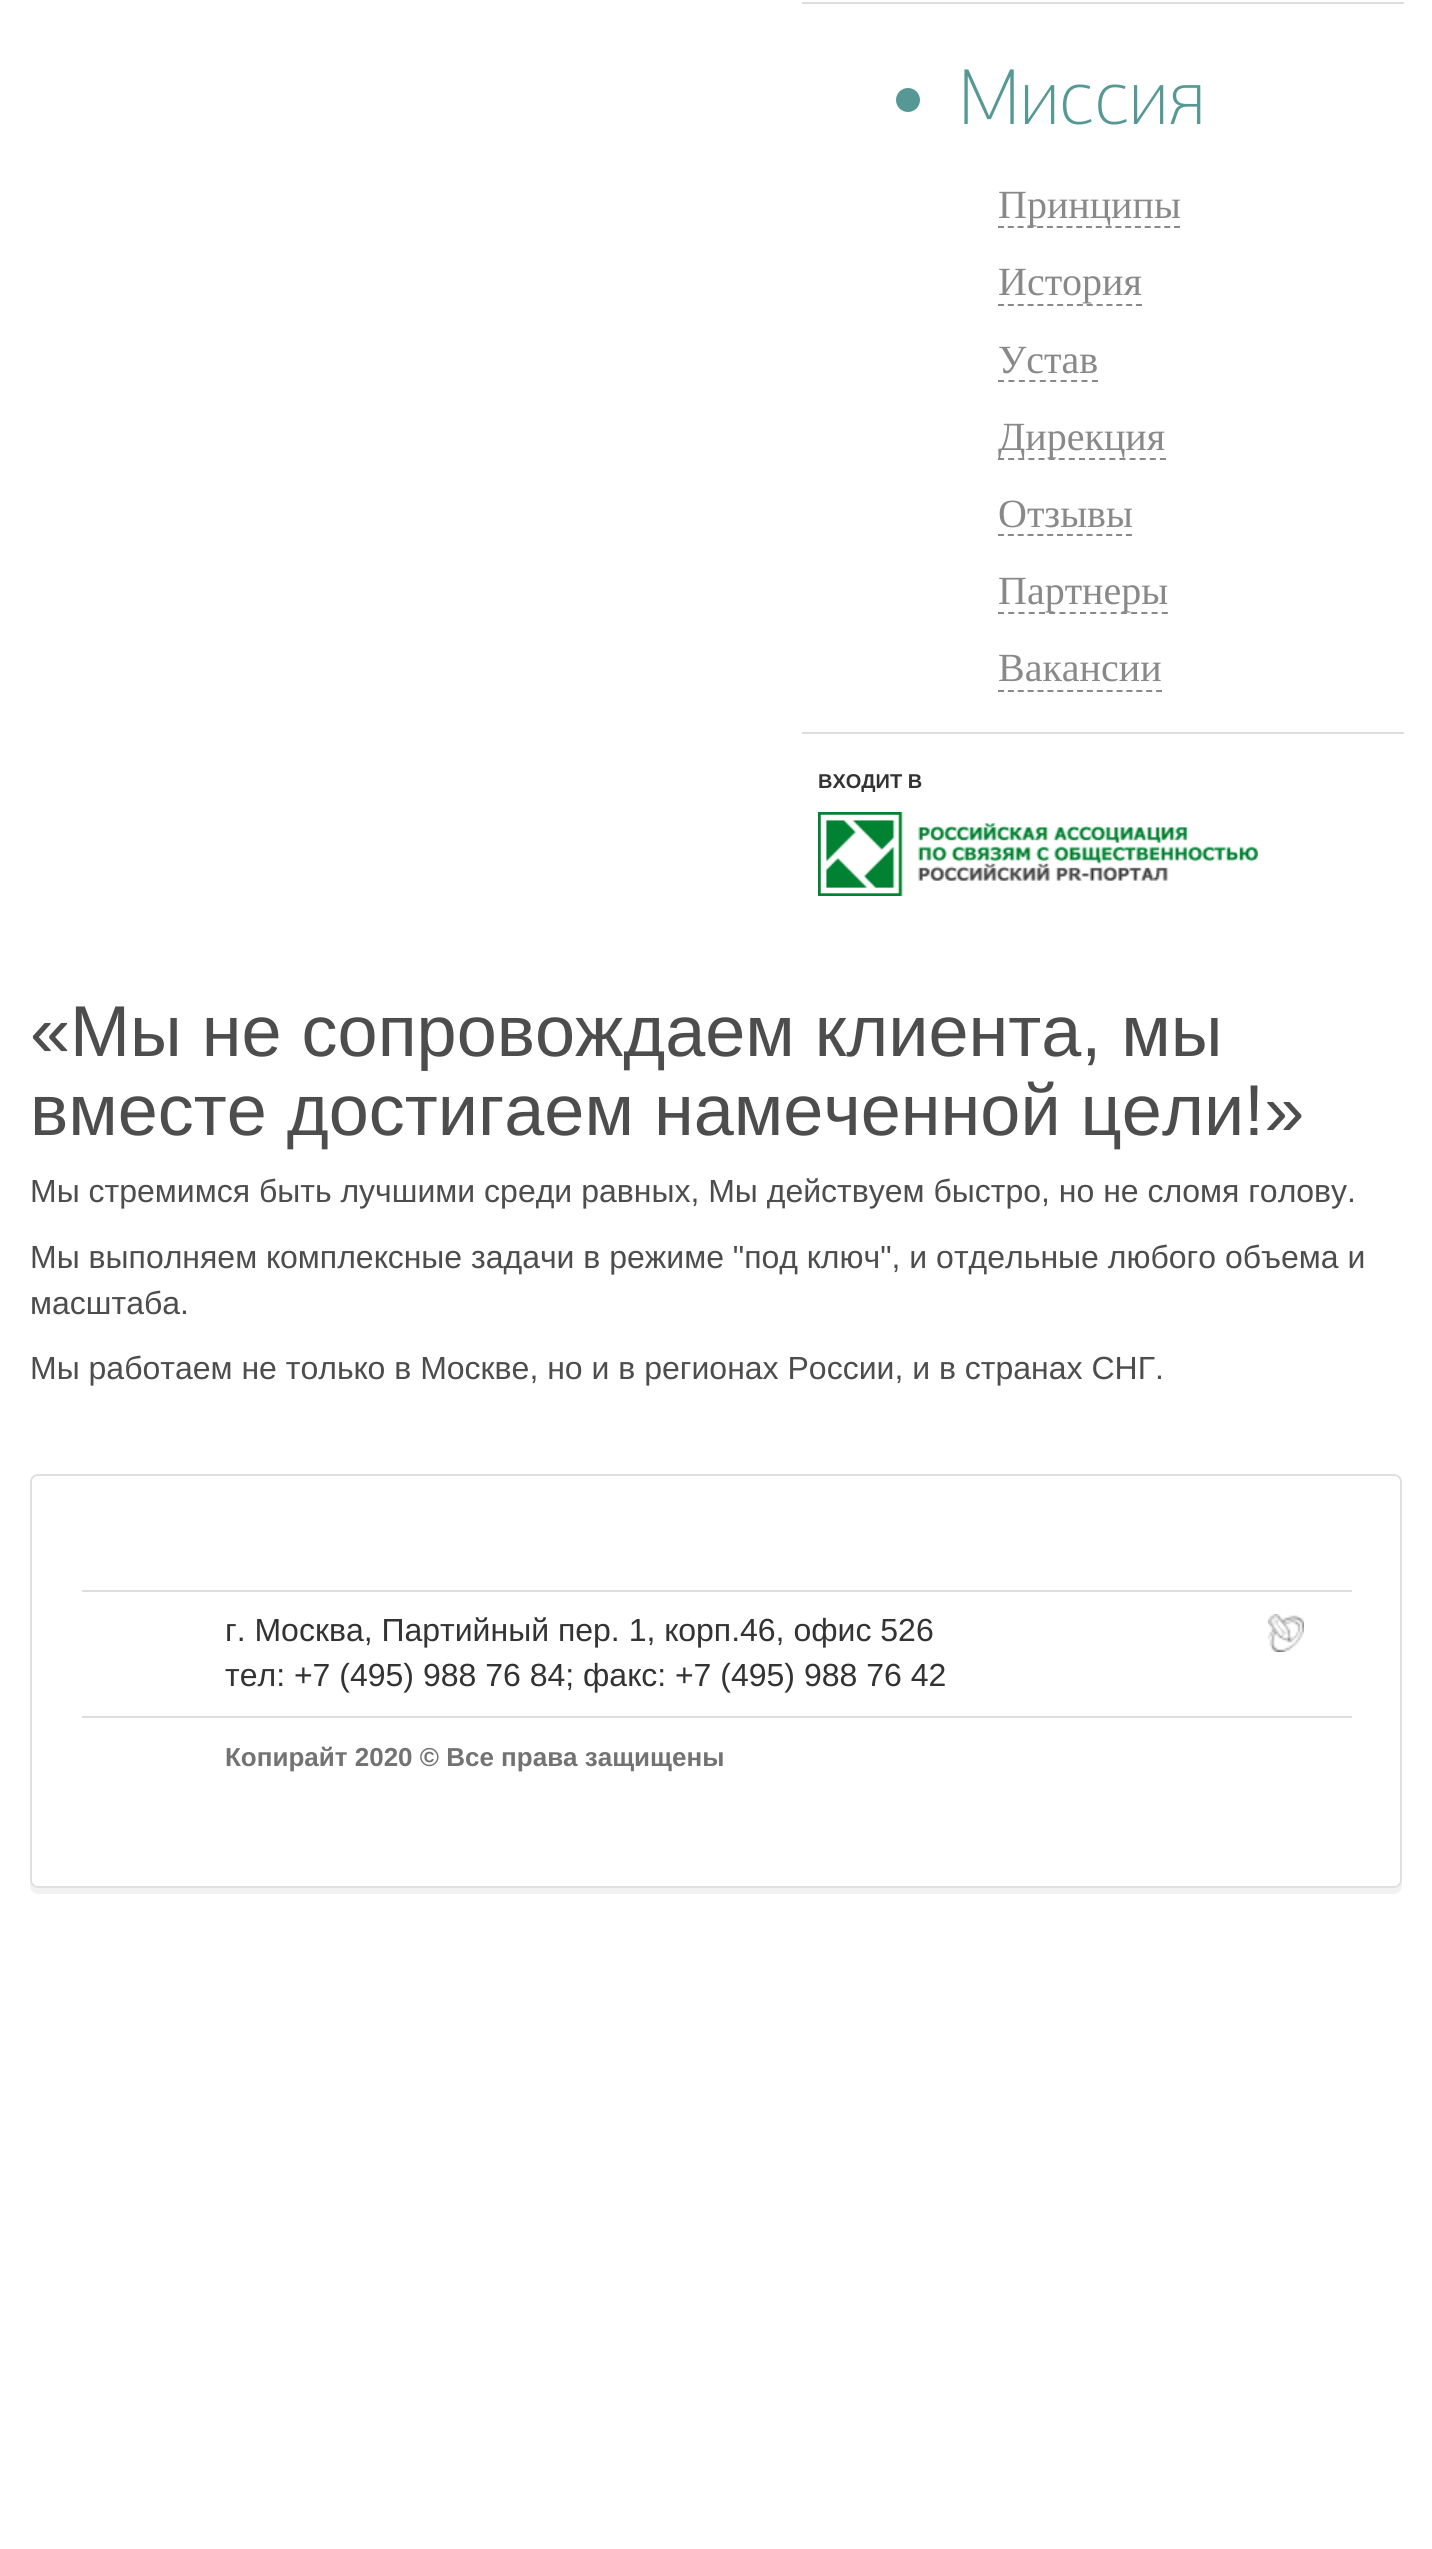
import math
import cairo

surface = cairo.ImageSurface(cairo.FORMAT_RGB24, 1432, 2549)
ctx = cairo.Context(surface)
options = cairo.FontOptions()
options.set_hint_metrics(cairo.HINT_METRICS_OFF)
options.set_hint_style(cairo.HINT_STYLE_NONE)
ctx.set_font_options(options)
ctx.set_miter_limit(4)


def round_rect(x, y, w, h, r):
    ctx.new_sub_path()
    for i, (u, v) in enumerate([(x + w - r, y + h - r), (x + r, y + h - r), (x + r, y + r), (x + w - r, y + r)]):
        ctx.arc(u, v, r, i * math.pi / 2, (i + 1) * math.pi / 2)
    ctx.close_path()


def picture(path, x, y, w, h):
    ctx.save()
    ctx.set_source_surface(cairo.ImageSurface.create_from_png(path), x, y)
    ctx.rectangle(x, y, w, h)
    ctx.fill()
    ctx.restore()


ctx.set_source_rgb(1, 1, 1)
ctx.paint()
ctx.set_source_rgb(0.867, 0.867, 0.867)
ctx.rectangle(802, 2, 602, 2)
ctx.fill()
ctx.set_source_rgb(0.337, 0.6, 0.58)
ctx.arc(908, 100, 12, 0, 2 * math.pi)
ctx.fill()
ctx.select_font_face("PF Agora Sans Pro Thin")
ctx.set_font_size(80)
ctx.move_to(958, 124)
ctx.show_text("Миссия")
ctx.new_path()
ctx.move_to(998, 227)
ctx.line_to(1180, 227)
ctx.set_source_rgb(0.537, 0.537, 0.537)
ctx.set_dash([6, 3.78])
ctx.stroke()
ctx.select_font_face("Liberation Serif")
ctx.set_font_size(40)
ctx.move_to(998, 218)
ctx.show_text("Принципы")
ctx.move_to(998, 295)
ctx.show_text("История")
ctx.new_path()
ctx.move_to(998, 305)
ctx.line_to(1142, 305)
ctx.set_dash([6, 3.86])
ctx.stroke()
ctx.move_to(998, 373)
ctx.show_text("Устав")
ctx.new_path()
ctx.move_to(998, 381)
ctx.line_to(1098, 381)
ctx.set_dash([6, 4.44])
ctx.stroke()
ctx.new_path()
ctx.move_to(998, 459)
ctx.line_to(1166, 459)
ctx.set_dash([6, 4.12])
ctx.stroke()
ctx.move_to(998, 450)
ctx.show_text("Дирекция")
ctx.move_to(998, 527)
ctx.show_text("Отзывы")
ctx.new_path()
ctx.move_to(998, 535)
ctx.line_to(1132, 535)
ctx.set_dash([6, 3.84])
ctx.stroke()
ctx.new_path()
ctx.move_to(998, 613)
ctx.line_to(1168, 613)
ctx.set_dash([6, 4.24])
ctx.stroke()
ctx.move_to(998, 604)
ctx.show_text("Партнеры")
ctx.move_to(998, 681)
ctx.show_text("Вакансии")
ctx.new_path()
ctx.move_to(998, 691)
ctx.line_to(1162, 691)
ctx.set_dash([6, 3.88])
ctx.stroke()
ctx.set_source_rgb(0.867, 0.867, 0.867)
ctx.rectangle(802, 732, 602, 2)
ctx.fill()
ctx.select_font_face("Liberation Sans", cairo.FONT_SLANT_NORMAL, cairo.FONT_WEIGHT_BOLD)
ctx.set_font_size(20)
ctx.set_source_rgb(0.2, 0.2, 0.2)
ctx.move_to(818, 788)
ctx.show_text("ВХОДИТ В")
picture("img1.png", 818, 812, 440, 84)
ctx.select_font_face("Liberation Sans")
ctx.set_font_size(72)
ctx.set_source_rgb(0.302, 0.302, 0.302)
ctx.move_to(30, 1056)
ctx.show_text("«Мы не сопровождаем клиента, мы")
ctx.move_to(30, 1135)
ctx.show_text("вместе достигаем намеченной цели!»")
ctx.set_font_size(32)
ctx.move_to(30, 1202)
ctx.show_text("Мы стремимся быть лучшими среди равных, Мы действуем быстро, но не сломя голову.")
ctx.move_to(30, 1268)
ctx.show_text("Мы выполняем комплексные задачи в режиме \"под ключ\", и отдельные любого объема и")
ctx.move_to(30, 1314)
ctx.show_text("масштаба.")
ctx.move_to(30, 1379)
ctx.show_text("Мы работаем не только в Москве, но и в регионах России, и в странах СНГ.")
ctx.set_source_rgb(0.949, 0.949, 0.949)
ctx.new_path()
ctx.move_to(30, 1880)
ctx.line_to(30, 1886)
ctx.curve_to(30, 1890, 34, 1894, 38, 1894)
ctx.line_to(1394, 1894)
ctx.curve_to(1398, 1894, 1402, 1890, 1402, 1886)
ctx.line_to(1402, 1880)
ctx.curve_to(1402, 1884, 1398, 1888, 1394, 1888)
ctx.line_to(38, 1888)
ctx.curve_to(34, 1888, 30, 1884, 30, 1880)
ctx.close_path()
ctx.fill()
ctx.set_source_rgb(1, 1, 1)
round_rect(30, 1474, 1372, 414, 8)
ctx.fill()
round_rect(31, 1475, 1370, 412, 7)
ctx.set_source_rgba(0.2, 0.2, 0.2, 0.15)
ctx.set_dash([])
ctx.stroke()
ctx.set_source_rgb(0.867, 0.867, 0.867)
ctx.rectangle(82, 1590, 1270, 2)
ctx.fill()
picture("img2.png", 1268, 1614, 36, 38)
ctx.set_source_rgb(0.2, 0.2, 0.2)
ctx.move_to(225, 1641)
ctx.show_text("г. Москва, Партийный пер. 1, корп.46, офис 526")
ctx.move_to(225, 1686)
ctx.show_text("тел: +7 (495) 988 76 84; факс: +7 (495) 988 76 42")
ctx.set_source_rgb(0.867, 0.867, 0.867)
ctx.rectangle(82, 1716, 1270, 2)
ctx.fill()
ctx.select_font_face("Liberation Sans", cairo.FONT_SLANT_NORMAL, cairo.FONT_WEIGHT_BOLD)
ctx.set_font_size(26)
ctx.set_source_rgb(0.451, 0.451, 0.451)
ctx.move_to(225, 1766)
ctx.show_text("Копирайт 2020 © Все права защищены")
surface.write_to_png("page.png")
